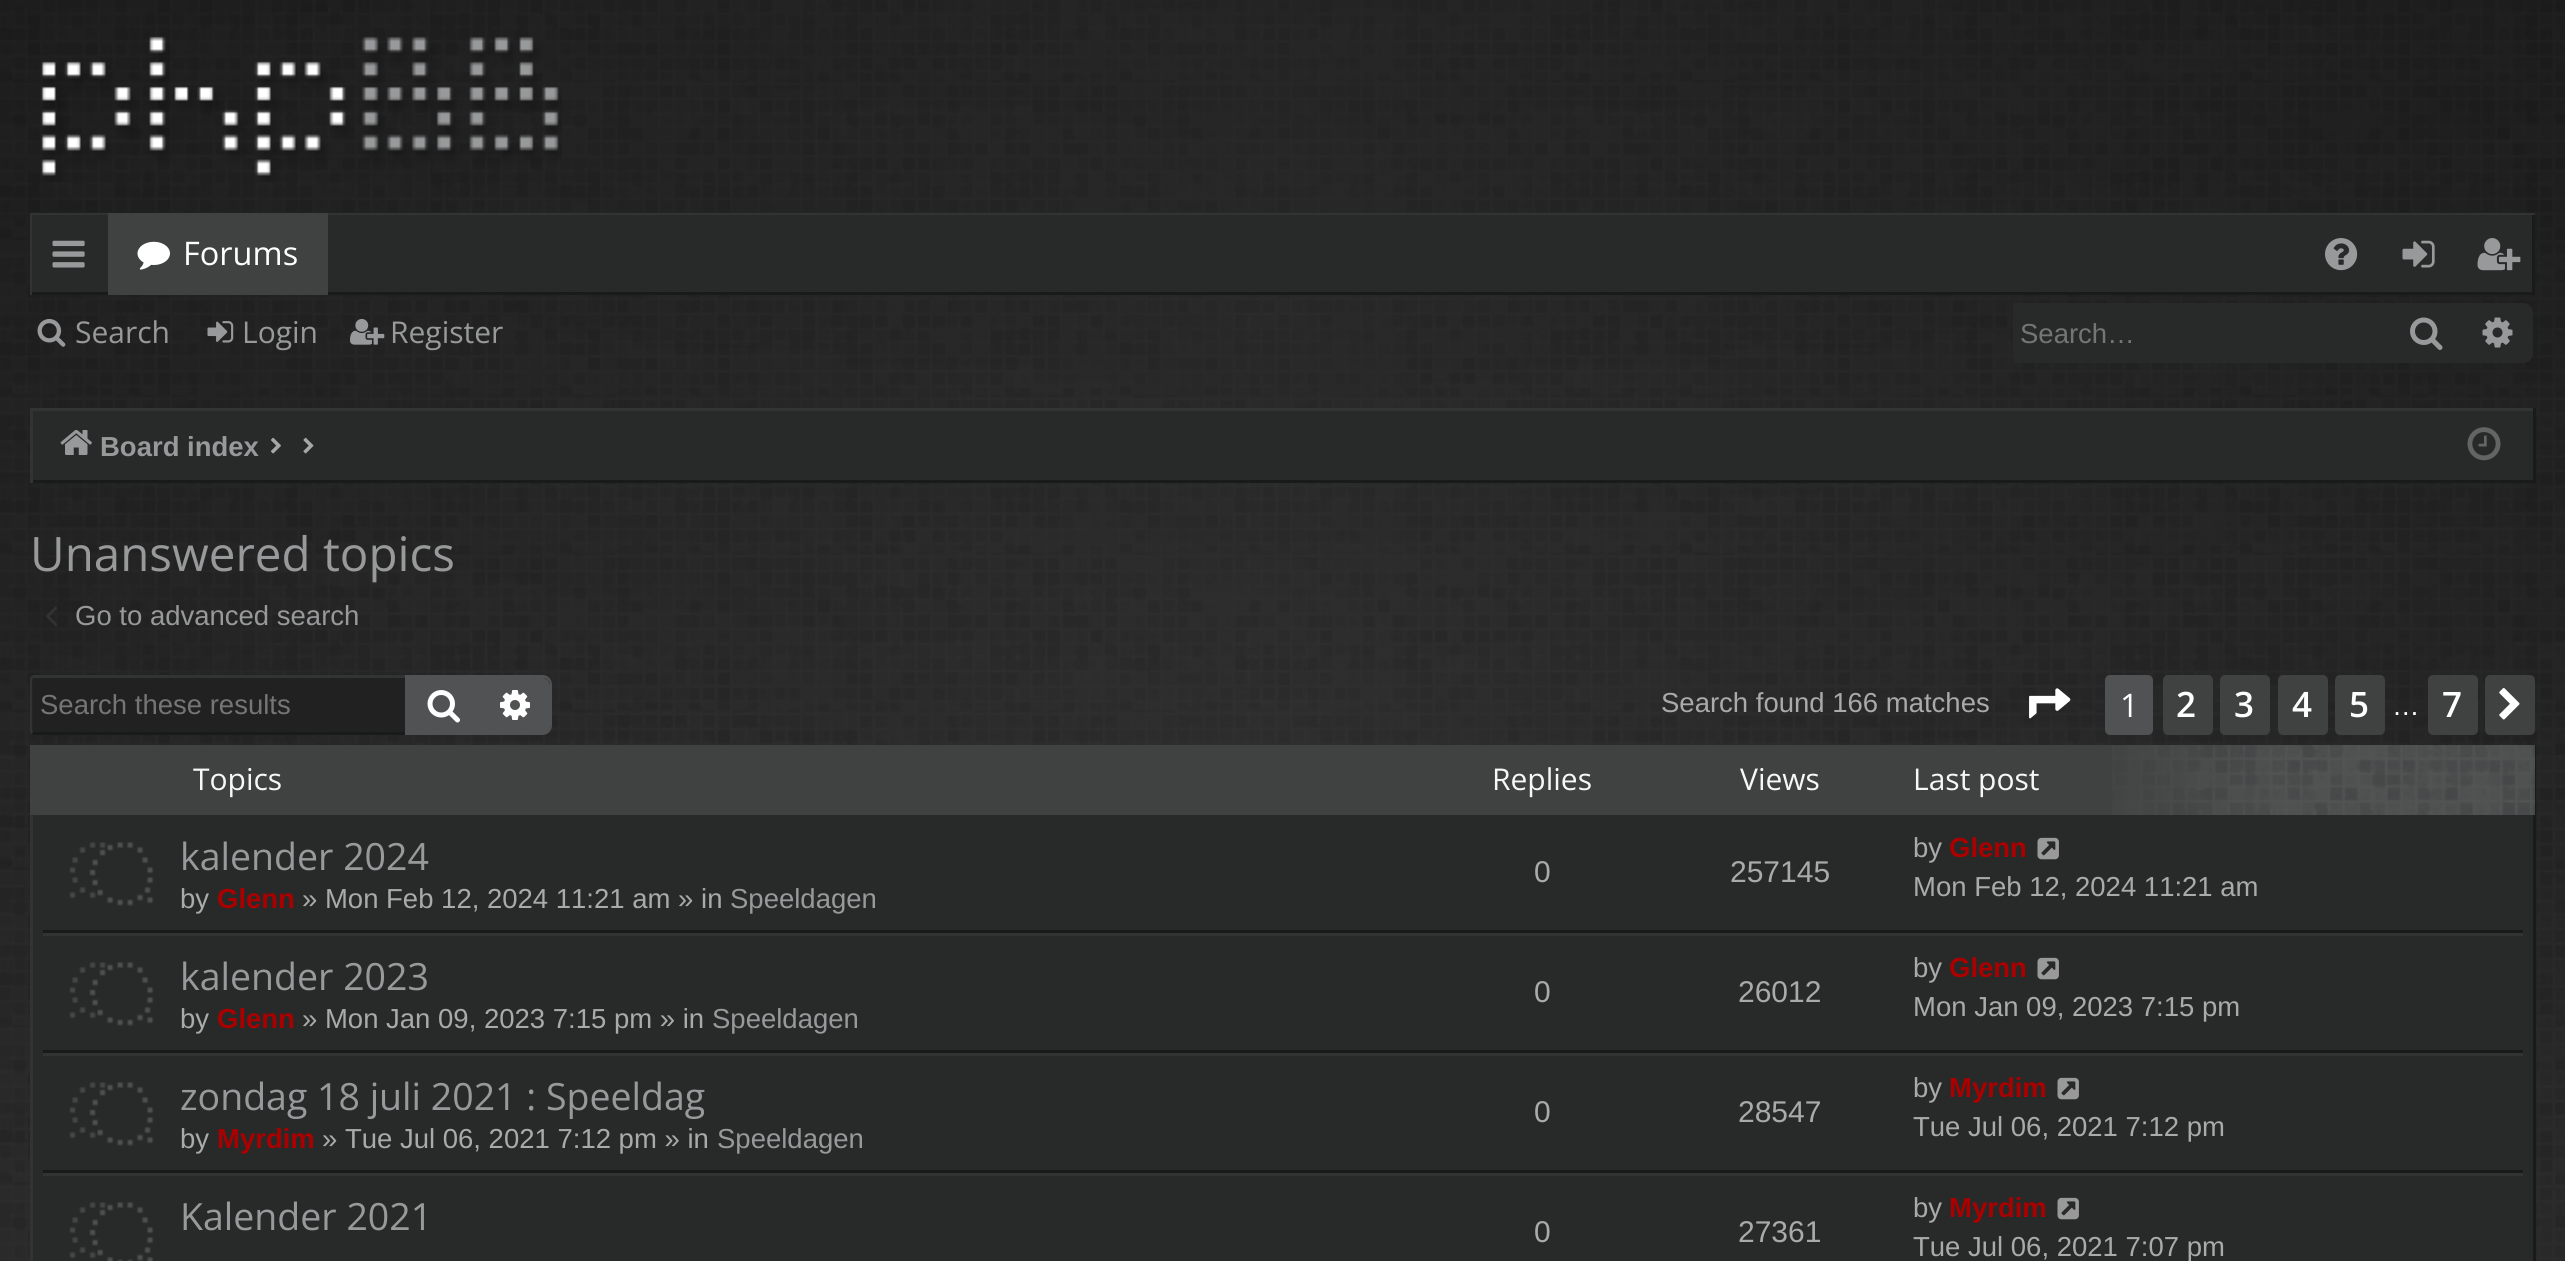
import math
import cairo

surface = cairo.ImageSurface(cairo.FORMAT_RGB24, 2565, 1261)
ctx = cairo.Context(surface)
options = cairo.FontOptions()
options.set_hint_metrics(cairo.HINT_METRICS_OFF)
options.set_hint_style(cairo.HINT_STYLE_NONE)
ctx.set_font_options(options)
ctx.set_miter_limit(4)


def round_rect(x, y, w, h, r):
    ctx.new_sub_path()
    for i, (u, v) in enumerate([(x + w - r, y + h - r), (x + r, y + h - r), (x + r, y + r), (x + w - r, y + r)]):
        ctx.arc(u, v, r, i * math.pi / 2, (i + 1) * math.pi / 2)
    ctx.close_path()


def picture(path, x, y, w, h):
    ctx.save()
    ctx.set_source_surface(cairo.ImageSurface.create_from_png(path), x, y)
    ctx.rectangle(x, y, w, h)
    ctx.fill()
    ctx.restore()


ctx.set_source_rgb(0.133, 0.133, 0.133)
ctx.paint()
picture("img1.png", 0, 0, 2565, 1261)
picture("img2.png", 41, 36, 521, 146)
ctx.set_source_rgb(0.157, 0.161, 0.161)
ctx.rectangle(32, 215, 2500, 77)
ctx.fill()
ctx.save()
ctx.rectangle(30, 213, 2505, 82)
ctx.clip()
ctx.set_source_rgb(0.098, 0.102, 0.102)
ctx.set_fill_rule(cairo.FILL_RULE_EVEN_ODD)
ctx.new_path()
ctx.move_to(-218, -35)
ctx.line_to(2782, -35)
ctx.line_to(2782, 542)
ctx.line_to(-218, 542)
ctx.close_path()
ctx.move_to(28, 210)
ctx.line_to(2532, 210)
ctx.line_to(2532, 292)
ctx.line_to(28, 292)
ctx.close_path()
ctx.fill()
ctx.set_source_rgb(0.196, 0.2, 0.2)
ctx.new_path()
ctx.move_to(-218, -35)
ctx.line_to(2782, -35)
ctx.line_to(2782, 542)
ctx.line_to(-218, 542)
ctx.close_path()
ctx.move_to(32, 215)
ctx.line_to(2538, 215)
ctx.line_to(2538, 298)
ctx.line_to(32, 298)
ctx.close_path()
ctx.fill()
ctx.restore()
picture("img3.png", 52, 240, 33, 28)
ctx.set_source_rgb(0.251, 0.255, 0.255)
ctx.rectangle(108, 213, 220, 82)
ctx.fill()
picture("img4.png", 137, 241, 33, 29)
ctx.select_font_face("Open Sans")
ctx.set_font_size(32.5)
ctx.set_source_rgb(1, 1, 1)
ctx.move_to(183, 265)
ctx.show_text("Forums")
picture("img5.png", 2325, 238, 33, 33)
picture("img6.png", 2402, 240, 33, 28)
picture("img7.png", 2477, 238, 44, 33)
picture("img8.png", 37, 318, 29, 29)
ctx.set_font_size(30)
ctx.set_source_rgb(0.596, 0.6, 0.604)
ctx.move_to(75, 343)
ctx.show_text("Search")
picture("img9.png", 207, 321, 27, 22)
ctx.move_to(242, 343)
ctx.show_text("Login")
picture("img10.png", 350, 318, 35, 27)
ctx.move_to(390, 343)
ctx.show_text("Register")
ctx.set_source_rgb(0.157, 0.161, 0.161)
ctx.rectangle(2013, 303, 375, 60)
ctx.fill()
ctx.select_font_face("Liberation Sans")
ctx.set_font_size(27.5)
ctx.set_source_rgb(0.459, 0.459, 0.459)
ctx.move_to(2020, 343)
ctx.show_text("Search…")
ctx.set_source_rgb(0.157, 0.161, 0.161)
ctx.rectangle(2388, 303, 75, 60)
ctx.fill()
picture("img11.png", 2410, 317, 33, 33)
ctx.new_path()
ctx.move_to(2463, 303)
ctx.line_to(2523, 303)
ctx.curve_to(2528.5, 303, 2533, 307.5, 2533, 313)
ctx.line_to(2533, 353)
ctx.curve_to(2533, 358.5, 2528.5, 363, 2523, 363)
ctx.line_to(2463, 363)
ctx.close_path()
ctx.fill()
picture("img12.png", 2482, 317, 31, 31)
ctx.rectangle(33, 411, 2500, 69)
ctx.fill()
ctx.set_source_rgb(0.196, 0.2, 0.2)
ctx.rectangle(30, 408, 2505, 3)
ctx.fill()
ctx.set_source_rgb(0.098, 0.102, 0.102)
ctx.rectangle(2533, 408, 3, 75)
ctx.fill()
ctx.rectangle(30, 480, 2505, 3)
ctx.fill()
ctx.set_source_rgb(0.196, 0.2, 0.2)
ctx.rectangle(30, 408, 3, 75)
ctx.fill()
picture("img13.png", 60, 430, 32, 25)
ctx.select_font_face("Liberation Sans", cairo.FONT_SLANT_NORMAL, cairo.FONT_WEIGHT_BOLD)
ctx.set_source_rgb(0.596, 0.6, 0.604)
ctx.move_to(100, 456)
ctx.show_text("Board index")
picture("img14.png", 270, 437, 11, 17)
picture("img15.png", 303, 437, 11, 17)
picture("img16.png", 2467, 427, 34, 34)
ctx.select_font_face("Open Sans")
ctx.set_font_size(47.5)
ctx.move_to(30, 571)
ctx.show_text("Unanswered topics")
picture("img17.png", 46, 606, 11, 20)
ctx.select_font_face("Liberation Sans")
ctx.set_font_size(27.5)
ctx.move_to(75, 625)
ctx.show_text("Go to advanced search")
ctx.set_source_rgb(0.129, 0.129, 0.133)
ctx.new_path()
ctx.move_to(35.5, 678)
ctx.line_to(405, 678)
ctx.line_to(405, 733)
ctx.line_to(35.5, 733)
ctx.curve_to(34, 733, 33, 732, 33, 730.5)
ctx.line_to(33, 680.5)
ctx.curve_to(33, 679, 34, 678, 35.5, 678)
ctx.close_path()
ctx.fill()
ctx.set_source_rgb(0.196, 0.2, 0.2)
ctx.new_path()
ctx.move_to(35, 675)
ctx.curve_to(34, 675, 32, 676, 31, 676)
ctx.line_to(33, 678)
ctx.line_to(35, 678)
ctx.line_to(405, 678)
ctx.line_to(405, 675)
ctx.close_path()
ctx.fill()
ctx.set_source_rgb(0.098, 0.102, 0.102)
ctx.new_path()
ctx.move_to(405, 735)
ctx.line_to(405, 732)
ctx.line_to(35, 732)
ctx.line_to(33, 732)
ctx.line_to(31, 734)
ctx.curve_to(32, 734, 34, 735, 35, 735)
ctx.close_path()
ctx.fill()
ctx.set_source_rgb(0.196, 0.2, 0.2)
ctx.new_path()
ctx.move_to(30, 680)
ctx.line_to(30, 730)
ctx.curve_to(30, 732, 30, 733, 31, 734)
ctx.line_to(33, 732)
ctx.line_to(32, 730)
ctx.line_to(32, 680)
ctx.line_to(33, 678)
ctx.line_to(31, 676)
ctx.curve_to(30, 677, 30, 678, 30, 680)
ctx.close_path()
ctx.fill()
ctx.set_source_rgb(0.459, 0.459, 0.459)
ctx.move_to(40, 714)
ctx.show_text("Search these results")
ctx.set_source_rgb(0.318, 0.322, 0.325)
ctx.rectangle(405, 675, 75, 60)
ctx.fill()
picture("img18.png", 427, 690, 33, 33)
ctx.new_path()
ctx.move_to(480, 678)
ctx.line_to(542, 678)
ctx.curve_to(546.5, 678, 550, 681.5, 550, 686)
ctx.line_to(550, 725)
ctx.curve_to(550, 729.5, 546.5, 733, 542, 733)
ctx.line_to(480, 733)
ctx.close_path()
ctx.fill()
ctx.set_fill_rule(cairo.FILL_RULE_EVEN_ODD)
ctx.new_path()
ctx.move_to(480, 675)
ctx.line_to(542, 675)
ctx.curve_to(548, 675, 552, 679, 552, 685)
ctx.line_to(552, 725)
ctx.curve_to(552, 731, 548, 735, 542, 735)
ctx.line_to(480, 735)
ctx.close_path()
ctx.move_to(480, 678)
ctx.line_to(542, 678)
ctx.curve_to(547, 678, 550, 681, 550, 685)
ctx.line_to(550, 725)
ctx.curve_to(550, 729, 547, 732, 542, 732)
ctx.line_to(480, 732)
ctx.close_path()
ctx.fill()
picture("img19.png", 500, 690, 30, 30)
ctx.set_source_rgb(0.667, 0.667, 0.667)
ctx.move_to(1661, 712)
ctx.show_text("Search found 166 matches")
picture("img20.png", 2029, 688, 42, 31)
ctx.set_source_rgb(0.318, 0.322, 0.325)
round_rect(2106.5, 676.5, 45, 57, 3.5)
ctx.fill_preserve()
ctx.set_line_width(3)
ctx.stroke()
ctx.select_font_face("Open Sans")
ctx.set_font_size(32.5)
ctx.set_source_rgb(1, 1, 1)
ctx.move_to(2120, 717)
ctx.show_text("1")
ctx.set_source_rgb(0.251, 0.255, 0.255)
round_rect(2164.5, 676.5, 47, 57, 3.5)
ctx.fill_preserve()
ctx.stroke()
ctx.select_font_face("Open Sans SemiBold")
ctx.set_font_size(35)
ctx.set_source_rgb(1, 1, 1)
ctx.move_to(2176, 717)
ctx.show_text("2")
ctx.set_source_rgb(0.251, 0.255, 0.255)
round_rect(2221.5, 676.5, 47, 57, 3.5)
ctx.fill_preserve()
ctx.stroke()
ctx.set_source_rgb(1, 1, 1)
ctx.move_to(2234, 717)
ctx.show_text("3")
ctx.set_source_rgb(0.251, 0.255, 0.255)
round_rect(2279.5, 676.5, 47, 57, 3.5)
ctx.fill_preserve()
ctx.stroke()
ctx.set_source_rgb(1, 1, 1)
ctx.move_to(2292, 717)
ctx.show_text("4")
ctx.set_source_rgb(0.251, 0.255, 0.255)
round_rect(2336.5, 676.5, 47, 57, 3.5)
ctx.fill_preserve()
ctx.stroke()
ctx.set_source_rgb(1, 1, 1)
ctx.move_to(2349, 717)
ctx.show_text("5")
ctx.select_font_face("Liberation Sans")
ctx.set_font_size(27.5)
ctx.move_to(2392, 715)
ctx.show_text("…")
ctx.set_source_rgb(0.251, 0.255, 0.255)
round_rect(2429.5, 676.5, 47, 57, 3.5)
ctx.fill_preserve()
ctx.stroke()
ctx.select_font_face("Open Sans SemiBold")
ctx.set_font_size(35)
ctx.set_source_rgb(1, 1, 1)
ctx.move_to(2442, 717)
ctx.show_text("7")
ctx.set_source_rgb(0.251, 0.255, 0.255)
round_rect(2486.5, 676.5, 47, 57, 3.5)
ctx.fill_preserve()
ctx.stroke()
picture("img21.png", 2499, 688, 21, 32)
ctx.set_source_rgb(0.157, 0.161, 0.161)
ctx.rectangle(33, 815, 2500, 446)
ctx.fill()
ctx.set_source_rgb(0.098, 0.102, 0.102)
ctx.rectangle(2533, 745, 3, 516)
ctx.fill()
ctx.set_source_rgb(0.196, 0.2, 0.2)
ctx.rectangle(30, 815, 3, 446)
ctx.fill()
ctx.set_source_rgb(0.251, 0.255, 0.255)
ctx.rectangle(30, 745, 2505, 70)
ctx.fill()
picture("img22.png", 2112, 745, 423, 70)
ctx.select_font_face("Open Sans")
ctx.set_font_size(30)
ctx.set_source_rgb(0.965, 0.965, 0.965)
ctx.move_to(193, 790)
ctx.show_text("Topics")
ctx.move_to(1492, 790)
ctx.show_text("Replies")
ctx.move_to(1740, 790)
ctx.show_text("Views")
ctx.move_to(1913, 790)
ctx.show_text("Last post")
ctx.set_source_rgb(0.098, 0.102, 0.102)
ctx.rectangle(43, 930, 2480, 3)
ctx.fill()
picture("img23.png", 69, 842, 85, 64)
ctx.set_font_size(37.5)
ctx.set_source_rgb(0.596, 0.6, 0.604)
ctx.move_to(180, 870)
ctx.show_text("kalender 2024")
ctx.select_font_face("Liberation Sans")
ctx.set_font_size(27.5)
ctx.set_source_rgb(0.667, 0.667, 0.667)
ctx.move_to(180, 908)
ctx.show_text("by")
ctx.select_font_face("Liberation Sans", cairo.FONT_SLANT_NORMAL, cairo.FONT_WEIGHT_BOLD)
ctx.set_source_rgb(0.667, 0, 0)
ctx.move_to(217, 908)
ctx.show_text("Glenn")
ctx.select_font_face("Liberation Sans")
ctx.set_source_rgb(0.667, 0.667, 0.667)
ctx.move_to(302, 908)
ctx.show_text("» Mon Feb 12, 2024 11:21 am » in")
ctx.set_source_rgb(0.596, 0.6, 0.604)
ctx.move_to(730, 908)
ctx.show_text("Speeldagen")
ctx.set_font_size(30)
ctx.set_source_rgb(0.667, 0.667, 0.667)
ctx.move_to(1534, 882)
ctx.show_text("0")
ctx.move_to(1730, 882)
ctx.show_text("257145")
ctx.set_font_size(27.5)
ctx.move_to(1913, 857)
ctx.show_text("by")
ctx.select_font_face("Liberation Sans", cairo.FONT_SLANT_NORMAL, cairo.FONT_WEIGHT_BOLD)
ctx.set_source_rgb(0.667, 0, 0)
ctx.move_to(1949, 857)
ctx.show_text("Glenn")
picture("img24.png", 2037, 837, 22, 23)
ctx.select_font_face("Liberation Sans")
ctx.set_source_rgb(0.667, 0.667, 0.667)
ctx.move_to(1913, 896)
ctx.show_text("Mon Feb 12, 2024 11:21 am")
ctx.set_source_rgb(0.196, 0.2, 0.2)
ctx.rectangle(43, 933, 2480, 3)
ctx.fill()
ctx.set_source_rgb(0.098, 0.102, 0.102)
ctx.rectangle(43, 1050, 2480, 3)
ctx.fill()
picture("img23.png", 69, 962, 85, 64)
ctx.select_font_face("Open Sans")
ctx.set_font_size(37.5)
ctx.set_source_rgb(0.596, 0.6, 0.604)
ctx.move_to(180, 990)
ctx.show_text("kalender 2023")
ctx.select_font_face("Liberation Sans")
ctx.set_font_size(27.5)
ctx.set_source_rgb(0.667, 0.667, 0.667)
ctx.move_to(180, 1028)
ctx.show_text("by")
ctx.select_font_face("Liberation Sans", cairo.FONT_SLANT_NORMAL, cairo.FONT_WEIGHT_BOLD)
ctx.set_source_rgb(0.667, 0, 0)
ctx.move_to(217, 1028)
ctx.show_text("Glenn")
ctx.select_font_face("Liberation Sans")
ctx.set_source_rgb(0.667, 0.667, 0.667)
ctx.move_to(302, 1028)
ctx.show_text("» Mon Jan 09, 2023 7:15 pm » in")
ctx.set_source_rgb(0.596, 0.6, 0.604)
ctx.move_to(712, 1028)
ctx.show_text("Speeldagen")
ctx.set_font_size(30)
ctx.set_source_rgb(0.667, 0.667, 0.667)
ctx.move_to(1534, 1002)
ctx.show_text("0")
ctx.move_to(1738, 1002)
ctx.show_text("26012")
ctx.set_font_size(27.5)
ctx.move_to(1913, 977)
ctx.show_text("by")
ctx.select_font_face("Liberation Sans", cairo.FONT_SLANT_NORMAL, cairo.FONT_WEIGHT_BOLD)
ctx.set_source_rgb(0.667, 0, 0)
ctx.move_to(1949, 977)
ctx.show_text("Glenn")
picture("img24.png", 2037, 957, 22, 23)
ctx.select_font_face("Liberation Sans")
ctx.set_source_rgb(0.667, 0.667, 0.667)
ctx.move_to(1913, 1016)
ctx.show_text("Mon Jan 09, 2023 7:15 pm")
ctx.set_source_rgb(0.196, 0.2, 0.2)
ctx.rectangle(43, 1053, 2480, 3)
ctx.fill()
ctx.set_source_rgb(0.098, 0.102, 0.102)
ctx.rectangle(43, 1170, 2480, 3)
ctx.fill()
picture("img23.png", 69, 1082, 85, 64)
ctx.select_font_face("Open Sans")
ctx.set_font_size(37.5)
ctx.set_source_rgb(0.596, 0.6, 0.604)
ctx.move_to(180, 1110)
ctx.show_text("zondag 18 juli 2021 : Speeldag")
ctx.select_font_face("Liberation Sans")
ctx.set_font_size(27.5)
ctx.set_source_rgb(0.667, 0.667, 0.667)
ctx.move_to(180, 1148)
ctx.show_text("by")
ctx.select_font_face("Liberation Sans", cairo.FONT_SLANT_NORMAL, cairo.FONT_WEIGHT_BOLD)
ctx.set_source_rgb(0.667, 0, 0)
ctx.move_to(217, 1148)
ctx.show_text("Myrdim")
ctx.select_font_face("Liberation Sans")
ctx.set_source_rgb(0.667, 0.667, 0.667)
ctx.move_to(322, 1148)
ctx.show_text("» Tue Jul 06, 2021 7:12 pm » in")
ctx.set_source_rgb(0.596, 0.6, 0.604)
ctx.move_to(717, 1148)
ctx.show_text("Speeldagen")
ctx.set_font_size(30)
ctx.set_source_rgb(0.667, 0.667, 0.667)
ctx.move_to(1534, 1122)
ctx.show_text("0")
ctx.move_to(1738, 1122)
ctx.show_text("28547")
ctx.set_font_size(27.5)
ctx.move_to(1913, 1097)
ctx.show_text("by")
ctx.select_font_face("Liberation Sans", cairo.FONT_SLANT_NORMAL, cairo.FONT_WEIGHT_BOLD)
ctx.set_source_rgb(0.667, 0, 0)
ctx.move_to(1949, 1097)
ctx.show_text("Myrdim")
picture("img24.png", 2057, 1077, 22, 23)
ctx.select_font_face("Liberation Sans")
ctx.set_source_rgb(0.667, 0.667, 0.667)
ctx.move_to(1913, 1136)
ctx.show_text("Tue Jul 06, 2021 7:12 pm")
ctx.set_source_rgb(0.196, 0.2, 0.2)
ctx.rectangle(43, 1173, 2480, 3)
ctx.fill()
picture("img25.png", 69, 1202, 85, 59)
ctx.select_font_face("Open Sans")
ctx.set_font_size(37.5)
ctx.set_source_rgb(0.596, 0.6, 0.604)
ctx.move_to(180, 1230)
ctx.show_text("Kalender 2021")
ctx.select_font_face("Liberation Sans")
ctx.set_font_size(30)
ctx.set_source_rgb(0.667, 0.667, 0.667)
ctx.move_to(1534, 1242)
ctx.show_text("0")
ctx.move_to(1738, 1242)
ctx.show_text("27361")
ctx.set_font_size(27.5)
ctx.move_to(1913, 1217)
ctx.show_text("by")
ctx.select_font_face("Liberation Sans", cairo.FONT_SLANT_NORMAL, cairo.FONT_WEIGHT_BOLD)
ctx.set_source_rgb(0.667, 0, 0)
ctx.move_to(1949, 1217)
ctx.show_text("Myrdim")
picture("img24.png", 2057, 1197, 22, 23)
ctx.select_font_face("Liberation Sans")
ctx.set_source_rgb(0.667, 0.667, 0.667)
ctx.move_to(1913, 1256)
ctx.show_text("Tue Jul 06, 2021 7:07 pm")
surface.write_to_png("page.png")
